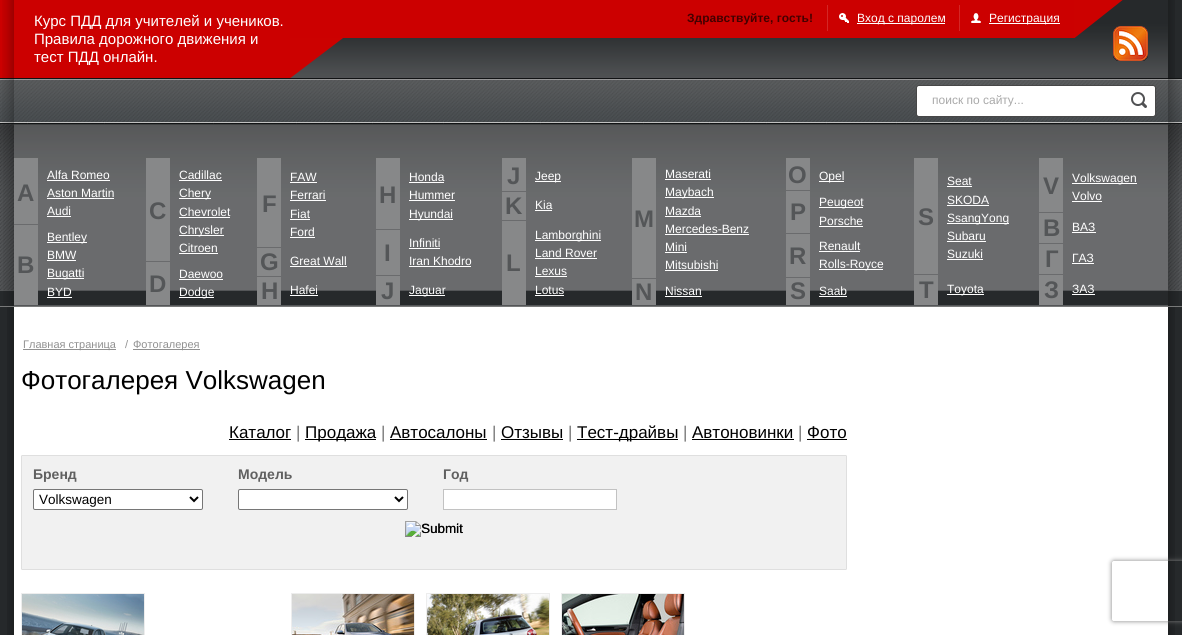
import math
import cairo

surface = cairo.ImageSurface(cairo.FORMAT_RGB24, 1182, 635)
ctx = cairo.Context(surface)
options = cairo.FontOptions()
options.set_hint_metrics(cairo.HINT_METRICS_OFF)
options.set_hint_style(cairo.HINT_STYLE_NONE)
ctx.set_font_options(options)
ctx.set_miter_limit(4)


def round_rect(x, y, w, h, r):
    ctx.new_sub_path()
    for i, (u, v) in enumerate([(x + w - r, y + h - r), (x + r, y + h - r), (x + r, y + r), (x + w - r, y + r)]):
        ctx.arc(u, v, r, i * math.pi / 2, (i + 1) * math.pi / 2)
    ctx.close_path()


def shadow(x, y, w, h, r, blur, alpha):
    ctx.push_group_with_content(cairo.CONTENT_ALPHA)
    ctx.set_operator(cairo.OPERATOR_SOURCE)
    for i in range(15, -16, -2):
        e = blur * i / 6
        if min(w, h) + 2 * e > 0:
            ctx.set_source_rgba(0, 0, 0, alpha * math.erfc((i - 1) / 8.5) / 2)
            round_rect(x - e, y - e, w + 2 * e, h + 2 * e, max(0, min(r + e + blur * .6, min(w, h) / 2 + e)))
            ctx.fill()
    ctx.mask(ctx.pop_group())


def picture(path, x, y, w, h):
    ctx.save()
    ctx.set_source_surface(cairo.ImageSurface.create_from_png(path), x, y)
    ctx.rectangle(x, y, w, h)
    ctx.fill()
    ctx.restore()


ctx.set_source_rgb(0.149, 0.161, 0.169)
ctx.paint()
ctx.set_source_rgb(0.8, 0, 0)
ctx.rectangle(0, 0, 290, 78)
ctx.fill()
picture("img1.png", 1168, 0, 7, 78)
picture("img2.png", 2, 0, 12, 78)
picture("img3.png", 290, 38, 878, 40)
ctx.rectangle(290, 0, 784, 38)
ctx.fill()
ctx.select_font_face("Liberation Sans")
ctx.set_font_size(15)
ctx.set_source_rgb(1, 1, 1)
ctx.move_to(34, 26)
ctx.show_text("Курс ПДД для учителей и учеников.")
ctx.move_to(34, 44)
ctx.show_text("Правила дорожного движения и")
ctx.move_to(34, 62)
ctx.show_text("тест ПДД онлайн.")
picture("img4.png", 290, 38, 53, 40)
ctx.set_source_rgb(0.831, 0.153, 0.149)
ctx.rectangle(827, 5, 1, 26)
ctx.fill()
ctx.select_font_face("Liberation Sans", cairo.FONT_SLANT_NORMAL, cairo.FONT_WEIGHT_BOLD)
ctx.set_font_size(12)
ctx.set_source_rgb(0.267, 0, 0)
ctx.move_to(687, 22)
ctx.show_text("Здравствуйте, гость!")
ctx.set_source_rgb(0.831, 0.153, 0.149)
ctx.rectangle(959, 5, 1, 26)
ctx.fill()
picture("img5.png", 839, 13, 10, 10)
ctx.set_source_rgb(1, 1, 1)
ctx.rectangle(857, 23, 88, 1)
ctx.fill()
ctx.select_font_face("Liberation Sans")
ctx.move_to(857, 22)
ctx.show_text("Вход с паролем")
picture("img6.png", 971, 13, 10, 10)
ctx.rectangle(989, 23, 71, 1)
ctx.fill()
ctx.move_to(989, 22)
ctx.show_text("Регистрация")
picture("img7.png", 1074, 0, 94, 38)
picture("img8.png", 1074, 0, 49, 38)
picture("img9.png", 1113, 26, 35, 35)
picture("img10.png", 0, 78, 1182, 46)
picture("img11.png", 1168, 78, 12, 45)
picture("img12.png", 2, 78, 12, 45)
picture("img13.png", 916, 85, 240, 32)
ctx.set_source_rgb(0.663, 0.663, 0.663)
ctx.move_to(932, 104)
ctx.show_text("поиск по сайту...")
picture("img14.png", 1131, 92, 16, 16)
picture("img15.png", 26, 121, 3, 3)
picture("img16.png", 103, 121, 3, 3)
picture("img15.png", 212, 121, 3, 3)
picture("img17.png", 295, 121, 3, 3)
picture("img18.png", 371, 121, 3, 3)
picture("img19.png", 442, 121, 3, 3)
picture("img20.png", 539, 121, 3, 3)
picture("img21.png", 642, 121, 3, 3)
picture("img15.png", 708, 121, 3, 3)
picture("img22.png", 765, 121, 3, 3)
picture("img23.png", 825, 121, 3, 3)
picture("img24.png", 895, 121, 3, 3)
picture("img25.png", 0, 124, 1182, 167)
ctx.set_source_rgb(0.471, 0.475, 0.475)
ctx.rectangle(0, 306, 1182, 1)
ctx.fill()
picture("img26.png", 1168, 124, 11, 182)
picture("img27.png", 3, 124, 11, 182)
picture("img28.png", 14, 125, 1154, 165)
ctx.set_source_rgb(0.251, 0.259, 0.263)
ctx.rectangle(14, 124, 1154, 1)
ctx.fill()
ctx.set_source_rgb(0.329, 0.337, 0.345)
ctx.rectangle(14, 305, 1154, 1)
ctx.fill()
ctx.set_source_rgb(0.529, 0.533, 0.537)
ctx.rectangle(14, 158, 24, 147)
ctx.fill()
ctx.select_font_face("Liberation Sans", cairo.FONT_SLANT_NORMAL, cairo.FONT_WEIGHT_BOLD)
ctx.set_font_size(24)
ctx.set_source_rgb(0.329, 0.337, 0.345)
ctx.move_to(17, 201)
ctx.show_text("A")
ctx.select_font_face("Liberation Sans")
ctx.set_font_size(12)
ctx.set_source_rgb(1, 1, 1)
ctx.move_to(47, 179)
ctx.show_text("Alfa Romeo")
ctx.rectangle(47, 180, 63, 1)
ctx.fill()
ctx.move_to(47, 197)
ctx.show_text("Aston Martin")
ctx.rectangle(47, 198, 67, 1)
ctx.fill()
ctx.move_to(47, 215)
ctx.show_text("Audi")
ctx.rectangle(47, 216, 24, 1)
ctx.fill()
ctx.set_source_rgb(0.416, 0.42, 0.427)
ctx.rectangle(14, 224, 24, 1)
ctx.fill()
ctx.select_font_face("Liberation Sans", cairo.FONT_SLANT_NORMAL, cairo.FONT_WEIGHT_BOLD)
ctx.set_font_size(24)
ctx.set_source_rgb(0.329, 0.337, 0.345)
ctx.move_to(17, 273)
ctx.show_text("B")
ctx.set_source_rgb(1, 1, 1)
ctx.rectangle(47, 242, 40, 1)
ctx.fill()
ctx.select_font_face("Liberation Sans")
ctx.set_font_size(12)
ctx.move_to(47, 241)
ctx.show_text("Bentley")
ctx.move_to(47, 259)
ctx.show_text("BMW")
ctx.rectangle(47, 260, 29, 1)
ctx.fill()
ctx.rectangle(47, 278, 37, 1)
ctx.fill()
ctx.move_to(47, 277)
ctx.show_text("Bugatti")
ctx.move_to(47, 296)
ctx.show_text("BYD")
ctx.rectangle(47, 297, 25, 1)
ctx.fill()
ctx.set_source_rgb(0.529, 0.533, 0.537)
ctx.rectangle(146, 158, 24, 147)
ctx.fill()
ctx.select_font_face("Liberation Sans", cairo.FONT_SLANT_NORMAL, cairo.FONT_WEIGHT_BOLD)
ctx.set_font_size(24)
ctx.set_source_rgb(0.329, 0.337, 0.345)
ctx.move_to(149, 219)
ctx.show_text("C")
ctx.select_font_face("Liberation Sans")
ctx.set_font_size(12)
ctx.set_source_rgb(1, 1, 1)
ctx.move_to(179, 179)
ctx.show_text("Cadillac")
ctx.rectangle(179, 180, 43, 1)
ctx.fill()
ctx.rectangle(179, 198, 32, 1)
ctx.fill()
ctx.move_to(179, 197)
ctx.show_text("Chery")
ctx.move_to(179, 216)
ctx.show_text("Chevrolet")
ctx.rectangle(179, 217, 51, 1)
ctx.fill()
ctx.rectangle(179, 235, 45, 1)
ctx.fill()
ctx.move_to(179, 234)
ctx.show_text("Chrysler")
ctx.move_to(179, 252)
ctx.show_text("Citroen")
ctx.rectangle(179, 253, 39, 1)
ctx.fill()
ctx.set_source_rgb(0.416, 0.42, 0.427)
ctx.rectangle(146, 261, 24, 1)
ctx.fill()
ctx.select_font_face("Liberation Sans", cairo.FONT_SLANT_NORMAL, cairo.FONT_WEIGHT_BOLD)
ctx.set_font_size(24)
ctx.set_source_rgb(0.329, 0.337, 0.345)
ctx.move_to(149, 292)
ctx.show_text("D")
ctx.select_font_face("Liberation Sans")
ctx.set_font_size(12)
ctx.set_source_rgb(1, 1, 1)
ctx.move_to(179, 278)
ctx.show_text("Daewoo")
ctx.rectangle(179, 279, 44, 1)
ctx.fill()
ctx.rectangle(179, 297, 35, 1)
ctx.fill()
ctx.move_to(179, 296)
ctx.show_text("Dodge")
ctx.set_source_rgb(0.529, 0.533, 0.537)
ctx.rectangle(257, 158, 24, 147)
ctx.fill()
ctx.select_font_face("Liberation Sans", cairo.FONT_SLANT_NORMAL, cairo.FONT_WEIGHT_BOLD)
ctx.set_font_size(24)
ctx.set_source_rgb(0.329, 0.337, 0.345)
ctx.move_to(262, 212)
ctx.show_text("F")
ctx.select_font_face("Liberation Sans")
ctx.set_font_size(12)
ctx.set_source_rgb(1, 1, 1)
ctx.move_to(290, 181)
ctx.show_text("FAW")
ctx.rectangle(290, 182, 27, 1)
ctx.fill()
ctx.move_to(290, 199)
ctx.show_text("Ferrari")
ctx.rectangle(290, 200, 36, 1)
ctx.fill()
ctx.move_to(290, 218)
ctx.show_text("Fiat")
ctx.rectangle(290, 219, 20, 1)
ctx.fill()
ctx.move_to(290, 236)
ctx.show_text("Ford")
ctx.rectangle(290, 237, 25, 1)
ctx.fill()
ctx.set_source_rgb(0.416, 0.42, 0.427)
ctx.rectangle(257, 247, 24, 1)
ctx.fill()
ctx.select_font_face("Liberation Sans", cairo.FONT_SLANT_NORMAL, cairo.FONT_WEIGHT_BOLD)
ctx.set_font_size(24)
ctx.set_source_rgb(0.329, 0.337, 0.345)
ctx.move_to(260, 270)
ctx.show_text("G")
ctx.select_font_face("Liberation Sans")
ctx.set_font_size(12)
ctx.set_source_rgb(1, 1, 1)
ctx.move_to(290, 265)
ctx.show_text("Great Wall")
ctx.rectangle(290, 266, 57, 1)
ctx.fill()
ctx.set_source_rgb(0.416, 0.42, 0.427)
ctx.rectangle(257, 276, 24, 1)
ctx.fill()
ctx.select_font_face("Liberation Sans", cairo.FONT_SLANT_NORMAL, cairo.FONT_WEIGHT_BOLD)
ctx.set_font_size(24)
ctx.set_source_rgb(0.329, 0.337, 0.345)
ctx.move_to(261, 299)
ctx.show_text("H")
ctx.select_font_face("Liberation Sans")
ctx.set_font_size(12)
ctx.set_source_rgb(1, 1, 1)
ctx.move_to(290, 294)
ctx.show_text("Hafei")
ctx.rectangle(290, 295, 28, 1)
ctx.fill()
ctx.set_source_rgb(0.529, 0.533, 0.537)
ctx.rectangle(376, 158, 24, 147)
ctx.fill()
ctx.select_font_face("Liberation Sans", cairo.FONT_SLANT_NORMAL, cairo.FONT_WEIGHT_BOLD)
ctx.set_font_size(24)
ctx.set_source_rgb(0.329, 0.337, 0.345)
ctx.move_to(379, 203)
ctx.show_text("H")
ctx.select_font_face("Liberation Sans")
ctx.set_font_size(12)
ctx.set_source_rgb(1, 1, 1)
ctx.move_to(409, 181)
ctx.show_text("Honda")
ctx.rectangle(409, 182, 35, 1)
ctx.fill()
ctx.move_to(409, 199)
ctx.show_text("Hummer")
ctx.rectangle(409, 200, 46, 1)
ctx.fill()
ctx.rectangle(409, 219, 44, 1)
ctx.fill()
ctx.move_to(409, 218)
ctx.show_text("Hyundai")
ctx.set_source_rgb(0.416, 0.42, 0.427)
ctx.rectangle(376, 229, 24, 1)
ctx.fill()
ctx.select_font_face("Liberation Sans", cairo.FONT_SLANT_NORMAL, cairo.FONT_WEIGHT_BOLD)
ctx.set_font_size(24)
ctx.set_source_rgb(0.329, 0.337, 0.345)
ctx.move_to(384, 261)
ctx.show_text("I")
ctx.select_font_face("Liberation Sans")
ctx.set_font_size(12)
ctx.set_source_rgb(1, 1, 1)
ctx.move_to(409, 247)
ctx.show_text("Infiniti")
ctx.rectangle(409, 248, 31, 1)
ctx.fill()
ctx.move_to(409, 265)
ctx.show_text("Iran Khodro")
ctx.rectangle(409, 266, 62, 1)
ctx.fill()
ctx.set_source_rgb(0.416, 0.42, 0.427)
ctx.rectangle(376, 275, 24, 1)
ctx.fill()
ctx.select_font_face("Liberation Sans", cairo.FONT_SLANT_NORMAL, cairo.FONT_WEIGHT_BOLD)
ctx.set_font_size(24)
ctx.set_source_rgb(0.329, 0.337, 0.345)
ctx.move_to(381, 299)
ctx.show_text("J")
ctx.set_source_rgb(1, 1, 1)
ctx.rectangle(409, 295, 36, 1)
ctx.fill()
ctx.select_font_face("Liberation Sans")
ctx.set_font_size(12)
ctx.move_to(409, 294)
ctx.show_text("Jaguar")
ctx.set_source_rgb(0.529, 0.533, 0.537)
ctx.rectangle(502, 158, 24, 147)
ctx.fill()
ctx.select_font_face("Liberation Sans", cairo.FONT_SLANT_NORMAL, cairo.FONT_WEIGHT_BOLD)
ctx.set_font_size(24)
ctx.set_source_rgb(0.329, 0.337, 0.345)
ctx.move_to(507, 184)
ctx.show_text("J")
ctx.set_source_rgb(1, 1, 1)
ctx.rectangle(535, 181, 26, 1)
ctx.fill()
ctx.select_font_face("Liberation Sans")
ctx.set_font_size(12)
ctx.move_to(535, 180)
ctx.show_text("Jeep")
ctx.set_source_rgb(0.416, 0.42, 0.427)
ctx.rectangle(502, 191, 24, 1)
ctx.fill()
ctx.select_font_face("Liberation Sans", cairo.FONT_SLANT_NORMAL, cairo.FONT_WEIGHT_BOLD)
ctx.set_font_size(24)
ctx.set_source_rgb(0.329, 0.337, 0.345)
ctx.move_to(505, 214)
ctx.show_text("K")
ctx.select_font_face("Liberation Sans")
ctx.set_font_size(12)
ctx.set_source_rgb(1, 1, 1)
ctx.move_to(535, 209)
ctx.show_text("Kia")
ctx.rectangle(535, 210, 17, 1)
ctx.fill()
ctx.set_source_rgb(0.416, 0.42, 0.427)
ctx.rectangle(502, 220, 24, 1)
ctx.fill()
ctx.select_font_face("Liberation Sans", cairo.FONT_SLANT_NORMAL, cairo.FONT_WEIGHT_BOLD)
ctx.set_font_size(24)
ctx.set_source_rgb(0.329, 0.337, 0.345)
ctx.move_to(506, 271)
ctx.show_text("L")
ctx.set_source_rgb(1, 1, 1)
ctx.rectangle(535, 240, 66, 1)
ctx.fill()
ctx.select_font_face("Liberation Sans")
ctx.set_font_size(12)
ctx.move_to(535, 239)
ctx.show_text("Lamborghini")
ctx.move_to(535, 257)
ctx.show_text("Land Rover")
ctx.rectangle(535, 258, 62, 1)
ctx.fill()
ctx.move_to(535, 275)
ctx.show_text("Lexus")
ctx.rectangle(535, 276, 32, 1)
ctx.fill()
ctx.move_to(535, 294)
ctx.show_text("Lotus")
ctx.rectangle(535, 295, 29, 1)
ctx.fill()
ctx.set_source_rgb(0.529, 0.533, 0.537)
ctx.rectangle(632, 158, 24, 147)
ctx.fill()
ctx.select_font_face("Liberation Sans", cairo.FONT_SLANT_NORMAL, cairo.FONT_WEIGHT_BOLD)
ctx.set_font_size(24)
ctx.set_source_rgb(0.329, 0.337, 0.345)
ctx.move_to(634, 227)
ctx.show_text("M")
ctx.select_font_face("Liberation Sans")
ctx.set_font_size(12)
ctx.set_source_rgb(1, 1, 1)
ctx.move_to(665, 178)
ctx.show_text("Maserati")
ctx.rectangle(665, 179, 46, 1)
ctx.fill()
ctx.rectangle(665, 197, 49, 1)
ctx.fill()
ctx.move_to(665, 196)
ctx.show_text("Maybach")
ctx.move_to(665, 215)
ctx.show_text("Mazda")
ctx.rectangle(665, 216, 36, 1)
ctx.fill()
ctx.move_to(665, 233)
ctx.show_text("Mercedes-Benz")
ctx.rectangle(665, 234, 84, 1)
ctx.fill()
ctx.move_to(665, 251)
ctx.show_text("Mini")
ctx.rectangle(665, 252, 22, 1)
ctx.fill()
ctx.move_to(665, 269)
ctx.show_text("Mitsubishi")
ctx.rectangle(665, 270, 53, 1)
ctx.fill()
ctx.set_source_rgb(0.416, 0.42, 0.427)
ctx.rectangle(632, 278, 24, 1)
ctx.fill()
ctx.select_font_face("Liberation Sans", cairo.FONT_SLANT_NORMAL, cairo.FONT_WEIGHT_BOLD)
ctx.set_font_size(24)
ctx.set_source_rgb(0.329, 0.337, 0.345)
ctx.move_to(635, 300)
ctx.show_text("N")
ctx.select_font_face("Liberation Sans")
ctx.set_font_size(12)
ctx.set_source_rgb(1, 1, 1)
ctx.move_to(665, 295)
ctx.show_text("Nissan")
ctx.rectangle(665, 296, 37, 1)
ctx.fill()
ctx.set_source_rgb(0.529, 0.533, 0.537)
ctx.rectangle(786, 158, 24, 147)
ctx.fill()
ctx.select_font_face("Liberation Sans", cairo.FONT_SLANT_NORMAL, cairo.FONT_WEIGHT_BOLD)
ctx.set_font_size(24)
ctx.set_source_rgb(0.329, 0.337, 0.345)
ctx.move_to(788, 183)
ctx.show_text("O")
ctx.set_source_rgb(1, 1, 1)
ctx.rectangle(819, 181, 25, 1)
ctx.fill()
ctx.select_font_face("Liberation Sans")
ctx.set_font_size(12)
ctx.move_to(819, 180)
ctx.show_text("Opel")
ctx.set_source_rgb(0.416, 0.42, 0.427)
ctx.rectangle(786, 190, 24, 1)
ctx.fill()
ctx.select_font_face("Liberation Sans", cairo.FONT_SLANT_NORMAL, cairo.FONT_WEIGHT_BOLD)
ctx.set_font_size(24)
ctx.set_source_rgb(0.329, 0.337, 0.345)
ctx.move_to(790, 220)
ctx.show_text("P")
ctx.set_source_rgb(1, 1, 1)
ctx.rectangle(819, 207, 44, 1)
ctx.fill()
ctx.select_font_face("Liberation Sans")
ctx.set_font_size(12)
ctx.move_to(819, 206)
ctx.show_text("Peugeot")
ctx.move_to(819, 225)
ctx.show_text("Porsche")
ctx.rectangle(819, 226, 44, 1)
ctx.fill()
ctx.set_source_rgb(0.416, 0.42, 0.427)
ctx.rectangle(786, 233, 24, 1)
ctx.fill()
ctx.select_font_face("Liberation Sans", cairo.FONT_SLANT_NORMAL, cairo.FONT_WEIGHT_BOLD)
ctx.set_font_size(24)
ctx.set_source_rgb(0.329, 0.337, 0.345)
ctx.move_to(789, 264)
ctx.show_text("R")
ctx.select_font_face("Liberation Sans")
ctx.set_font_size(12)
ctx.set_source_rgb(1, 1, 1)
ctx.move_to(819, 250)
ctx.show_text("Renault")
ctx.rectangle(819, 251, 41, 1)
ctx.fill()
ctx.rectangle(819, 269, 64, 1)
ctx.fill()
ctx.move_to(819, 268)
ctx.show_text("Rolls-Royce")
ctx.set_source_rgb(0.416, 0.42, 0.427)
ctx.rectangle(786, 277, 24, 1)
ctx.fill()
ctx.select_font_face("Liberation Sans", cairo.FONT_SLANT_NORMAL, cairo.FONT_WEIGHT_BOLD)
ctx.set_font_size(24)
ctx.set_source_rgb(0.329, 0.337, 0.345)
ctx.move_to(790, 299)
ctx.show_text("S")
ctx.select_font_face("Liberation Sans")
ctx.set_font_size(12)
ctx.set_source_rgb(1, 1, 1)
ctx.move_to(819, 295)
ctx.show_text("Saab")
ctx.rectangle(819, 296, 28, 1)
ctx.fill()
ctx.set_source_rgb(0.529, 0.533, 0.537)
ctx.rectangle(914, 158, 24, 147)
ctx.fill()
ctx.select_font_face("Liberation Sans", cairo.FONT_SLANT_NORMAL, cairo.FONT_WEIGHT_BOLD)
ctx.set_font_size(24)
ctx.set_source_rgb(0.329, 0.337, 0.345)
ctx.move_to(918, 225)
ctx.show_text("S")
ctx.select_font_face("Liberation Sans")
ctx.set_font_size(12)
ctx.set_source_rgb(1, 1, 1)
ctx.move_to(947, 185)
ctx.show_text("Seat")
ctx.rectangle(947, 186, 25, 1)
ctx.fill()
ctx.move_to(947, 204)
ctx.show_text("SKODA")
ctx.rectangle(947, 205, 42, 1)
ctx.fill()
ctx.rectangle(947, 223, 62, 1)
ctx.fill()
ctx.move_to(947, 222)
ctx.show_text("SsangYong")
ctx.move_to(947, 240)
ctx.show_text("Subaru")
ctx.rectangle(947, 241, 39, 1)
ctx.fill()
ctx.move_to(947, 258)
ctx.show_text("Suzuki")
ctx.rectangle(947, 259, 36, 1)
ctx.fill()
ctx.set_source_rgb(0.416, 0.42, 0.427)
ctx.rectangle(914, 274, 24, 1)
ctx.fill()
ctx.select_font_face("Liberation Sans", cairo.FONT_SLANT_NORMAL, cairo.FONT_WEIGHT_BOLD)
ctx.set_font_size(24)
ctx.set_source_rgb(0.329, 0.337, 0.345)
ctx.move_to(919, 298)
ctx.show_text("T")
ctx.set_source_rgb(1, 1, 1)
ctx.rectangle(947, 294, 37, 1)
ctx.fill()
ctx.select_font_face("Liberation Sans")
ctx.set_font_size(12)
ctx.move_to(947, 293)
ctx.show_text("Toyota")
ctx.set_source_rgb(0.529, 0.533, 0.537)
ctx.rectangle(1039, 158, 24, 147)
ctx.fill()
ctx.select_font_face("Liberation Sans", cairo.FONT_SLANT_NORMAL, cairo.FONT_WEIGHT_BOLD)
ctx.set_font_size(24)
ctx.set_source_rgb(0.329, 0.337, 0.345)
ctx.move_to(1043, 194)
ctx.show_text("V")
ctx.set_source_rgb(1, 1, 1)
ctx.rectangle(1072, 183, 65, 1)
ctx.fill()
ctx.select_font_face("Liberation Sans")
ctx.set_font_size(12)
ctx.move_to(1072, 182)
ctx.show_text("Volkswagen")
ctx.move_to(1072, 200)
ctx.show_text("Volvo")
ctx.rectangle(1072, 201, 30, 1)
ctx.fill()
ctx.set_source_rgb(0.416, 0.42, 0.427)
ctx.rectangle(1039, 212, 24, 1)
ctx.fill()
ctx.select_font_face("Liberation Sans", cairo.FONT_SLANT_NORMAL, cairo.FONT_WEIGHT_BOLD)
ctx.set_font_size(24)
ctx.set_source_rgb(0.329, 0.337, 0.345)
ctx.move_to(1043, 236)
ctx.show_text("В")
ctx.select_font_face("Liberation Sans")
ctx.set_font_size(12)
ctx.set_source_rgb(1, 1, 1)
ctx.move_to(1072, 231)
ctx.show_text("ВАЗ")
ctx.rectangle(1072, 232, 24, 1)
ctx.fill()
ctx.set_source_rgb(0.416, 0.42, 0.427)
ctx.rectangle(1039, 243, 24, 1)
ctx.fill()
ctx.select_font_face("Liberation Sans", cairo.FONT_SLANT_NORMAL, cairo.FONT_WEIGHT_BOLD)
ctx.set_font_size(24)
ctx.set_source_rgb(0.329, 0.337, 0.345)
ctx.move_to(1045, 267)
ctx.show_text("Г")
ctx.select_font_face("Liberation Sans")
ctx.set_font_size(12)
ctx.set_source_rgb(1, 1, 1)
ctx.move_to(1072, 262)
ctx.show_text("ГАЗ")
ctx.rectangle(1072, 263, 22, 1)
ctx.fill()
ctx.set_source_rgb(0.416, 0.42, 0.427)
ctx.rectangle(1039, 274, 24, 1)
ctx.fill()
ctx.select_font_face("Liberation Sans", cairo.FONT_SLANT_NORMAL, cairo.FONT_WEIGHT_BOLD)
ctx.set_font_size(24)
ctx.set_source_rgb(0.329, 0.337, 0.345)
ctx.move_to(1044, 298)
ctx.show_text("З")
ctx.select_font_face("Liberation Sans")
ctx.set_font_size(12)
ctx.set_source_rgb(1, 1, 1)
ctx.move_to(1072, 293)
ctx.show_text("ЗАЗ")
ctx.rectangle(1072, 294, 23, 1)
ctx.fill()
picture("img29.png", 1168, 307, 7, 15)
picture("img30.png", 7, 307, 7, 15)
ctx.rectangle(14, 307, 1154, 328)
ctx.fill()
picture("img31.png", 1168, 322, 7, 313)
picture("img32.png", 7, 322, 7, 313)
ctx.set_source_rgb(0.569, 0.569, 0.569)
ctx.rectangle(23, 349, 93, 1)
ctx.fill()
ctx.set_font_size(11)
ctx.move_to(23, 348)
ctx.show_text("Главная страница")
ctx.move_to(125, 348)
ctx.show_text("/")
ctx.rectangle(133, 349, 67, 1)
ctx.fill()
ctx.move_to(133, 348)
ctx.show_text("Фотогалерея")
ctx.set_font_size(26)
ctx.set_source_rgb(0, 0, 0)
ctx.move_to(21, 389)
ctx.show_text("Фотогалерея Volkswagen")
ctx.set_font_size(17)
ctx.move_to(229, 438)
ctx.show_text("Каталог")
ctx.rectangle(229, 439, 62, 1)
ctx.fill()
ctx.set_source_rgb(0.471, 0.471, 0.471)
ctx.move_to(296, 438)
ctx.show_text("|")
ctx.set_source_rgb(0, 0, 0)
ctx.rectangle(305, 439, 71, 1)
ctx.fill()
ctx.move_to(305, 438)
ctx.show_text("Продажа")
ctx.set_source_rgb(0.471, 0.471, 0.471)
ctx.move_to(381, 438)
ctx.show_text("|")
ctx.set_source_rgb(0, 0, 0)
ctx.move_to(390, 438)
ctx.show_text("Автосалоны")
ctx.rectangle(390, 439, 97, 1)
ctx.fill()
ctx.set_source_rgb(0.471, 0.471, 0.471)
ctx.move_to(492, 438)
ctx.show_text("|")
ctx.set_source_rgb(0, 0, 0)
ctx.move_to(501, 438)
ctx.show_text("Отзывы")
ctx.rectangle(501, 439, 62, 1)
ctx.fill()
ctx.set_source_rgb(0.471, 0.471, 0.471)
ctx.move_to(568, 438)
ctx.show_text("|")
ctx.set_source_rgb(0, 0, 0)
ctx.rectangle(577, 439, 101, 1)
ctx.fill()
ctx.move_to(577, 438)
ctx.show_text("Тест-драйвы")
ctx.set_source_rgb(0.471, 0.471, 0.471)
ctx.move_to(683, 438)
ctx.show_text("|")
ctx.set_source_rgb(0, 0, 0)
ctx.move_to(692, 438)
ctx.show_text("Автоновинки")
ctx.rectangle(692, 439, 102, 1)
ctx.fill()
ctx.set_source_rgb(0.471, 0.471, 0.471)
ctx.move_to(798, 438)
ctx.show_text("|")
ctx.set_source_rgb(0, 0, 0)
ctx.move_to(807, 438)
ctx.show_text("Фото")
ctx.rectangle(807, 439, 40, 1)
ctx.fill()
ctx.set_source_rgb(0.945, 0.945, 0.945)
ctx.rectangle(21.5, 455.5, 825, 114)
ctx.fill_preserve()
ctx.set_source_rgb(0.875, 0.875, 0.875)
ctx.set_line_width(1)
ctx.stroke()
ctx.set_source_rgb(0.925, 0.925, 0.925)
ctx.rectangle(21, 455, 1, 1)
ctx.fill()
ctx.rectangle(846, 455, 1, 1)
ctx.fill()
ctx.select_font_face("Liberation Sans", cairo.FONT_SLANT_NORMAL, cairo.FONT_WEIGHT_BOLD)
ctx.set_font_size(14)
ctx.set_source_rgb(0.376, 0.376, 0.376)
ctx.move_to(33, 479)
ctx.show_text("Бренд")
ctx.set_source_rgb(1, 1, 1)
round_rect(33.5, 489.5, 169, 20, 1.5)
ctx.fill_preserve()
ctx.set_source_rgb(0.463, 0.463, 0.463)
ctx.stroke()
ctx.new_path()
ctx.move_to(190, 497)
ctx.line_to(194, 501)
ctx.line_to(198, 497)
ctx.set_source_rgb(0, 0, 0)
ctx.set_line_width(2)
ctx.stroke()
ctx.select_font_face("Liberation Sans")
ctx.set_font_size(13.5)
ctx.move_to(39, 504)
ctx.show_text("Volkswagen")
ctx.select_font_face("Liberation Sans", cairo.FONT_SLANT_NORMAL, cairo.FONT_WEIGHT_BOLD)
ctx.set_font_size(14)
ctx.set_source_rgb(0.376, 0.376, 0.376)
ctx.move_to(238, 479)
ctx.show_text("Модель")
ctx.set_source_rgb(1, 1, 1)
round_rect(238.5, 489.5, 169, 20, 1.5)
ctx.fill_preserve()
ctx.set_source_rgb(0.463, 0.463, 0.463)
ctx.set_line_width(1)
ctx.stroke()
ctx.new_path()
ctx.move_to(395, 497)
ctx.line_to(399, 501)
ctx.line_to(403, 497)
ctx.set_source_rgb(0, 0, 0)
ctx.set_line_width(2)
ctx.stroke()
ctx.set_source_rgb(0.376, 0.376, 0.376)
ctx.move_to(443, 479)
ctx.show_text("Год")
ctx.set_source_rgb(1, 1, 1)
ctx.rectangle(443.5, 489.5, 173, 20)
ctx.fill_preserve()
ctx.set_source_rgb(0.761, 0.761, 0.761)
ctx.set_line_width(1)
ctx.stroke()
picture("img33.png", 405, 521, 58, 16)
ctx.select_font_face("Liberation Sans")
ctx.set_font_size(13.5)
ctx.set_source_rgb(0, 0, 0)
ctx.move_to(421, 533)
ctx.show_text("Submit")
ctx.set_source_rgb(0.925, 0.925, 0.925)
ctx.rectangle(21, 569, 1, 1)
ctx.fill()
ctx.rectangle(846, 569, 1, 1)
ctx.fill()
ctx.rectangle(21.5, 593.5, 123, 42)
ctx.set_source_rgb(0.929, 0.929, 0.929)
ctx.stroke()
picture("img34.png", 22, 594, 122, 41)
ctx.rectangle(291.5, 593.5, 123, 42)
ctx.stroke()
picture("img35.png", 292, 594, 122, 41)
ctx.rectangle(426.5, 593.5, 123, 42)
ctx.stroke()
picture("img36.png", 427, 594, 122, 41)
ctx.rectangle(561.5, 593.5, 123, 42)
ctx.stroke()
picture("img37.png", 562, 594, 122, 41)
ctx.save()
ctx.set_fill_rule(cairo.FILL_RULE_EVEN_ODD)
ctx.new_path()
ctx.move_to(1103, 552)
ctx.line_to(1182, 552)
ctx.line_to(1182, 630)
ctx.line_to(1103, 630)
ctx.close_path()
ctx.move_to(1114, 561)
ctx.line_to(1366, 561)
ctx.curve_to(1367, 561, 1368, 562, 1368, 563)
ctx.line_to(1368, 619)
ctx.curve_to(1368, 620, 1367, 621, 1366, 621)
ctx.line_to(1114, 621)
ctx.curve_to(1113, 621, 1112, 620, 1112, 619)
ctx.line_to(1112, 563)
ctx.curve_to(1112, 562, 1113, 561, 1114, 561)
ctx.close_path()
ctx.clip()
ctx.set_source_rgb(0.502, 0.502, 0.502)
shadow(1112, 561, 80, 60, 2, 2.5, 1)
ctx.restore()
surface.write_to_png("page.png")
